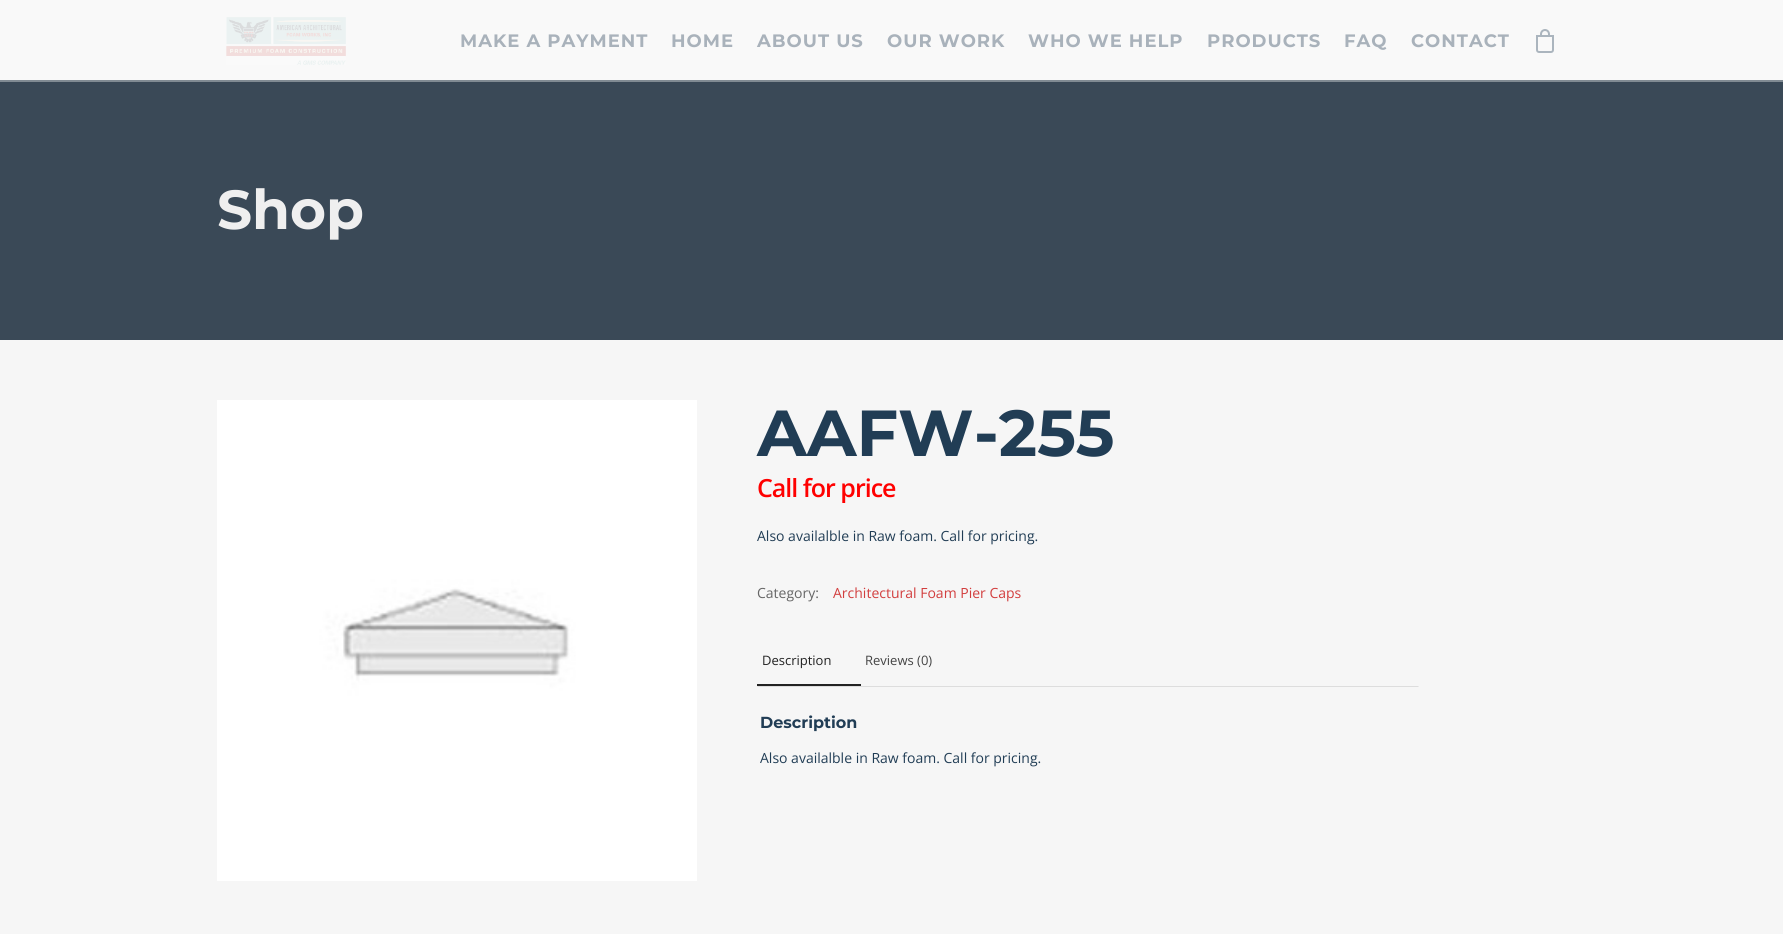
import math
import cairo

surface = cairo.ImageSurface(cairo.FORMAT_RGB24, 1783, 934)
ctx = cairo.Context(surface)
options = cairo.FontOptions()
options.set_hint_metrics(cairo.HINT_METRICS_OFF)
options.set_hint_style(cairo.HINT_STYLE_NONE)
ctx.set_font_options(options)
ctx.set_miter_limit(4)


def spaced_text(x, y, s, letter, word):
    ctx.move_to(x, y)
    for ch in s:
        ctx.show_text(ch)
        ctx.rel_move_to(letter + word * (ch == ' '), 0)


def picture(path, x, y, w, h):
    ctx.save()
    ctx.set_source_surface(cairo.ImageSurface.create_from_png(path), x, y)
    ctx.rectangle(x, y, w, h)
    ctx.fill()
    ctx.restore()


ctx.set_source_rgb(0.961, 0.961, 0.961)
ctx.paint()
ctx.set_source_rgb(0.976, 0.976, 0.976)
ctx.rectangle(0, 0, 1783, 80)
ctx.fill()
picture("img1.png", 226, 17, 120, 48)
ctx.select_font_face("Montserrat", cairo.FONT_SLANT_NORMAL, cairo.FONT_WEIGHT_BOLD)
ctx.set_font_size(18)
ctx.set_source_rgb(0.663, 0.698, 0.733)
spaced_text(460, 47, "MAKE A PAYMENT", 1, 0)
spaced_text(671, 47, "HOME", 1, 0)
spaced_text(757, 47, "ABOUT US", 1, 0)
spaced_text(887, 47, "OUR WORK", 1, 0)
spaced_text(1028, 47, "WHO WE HELP", 1, 0)
spaced_text(1207, 47, "PRODUCTS", 1, 0)
spaced_text(1344, 47, "FAQ", 1, 0)
spaced_text(1411, 47, "CONTACT", 1, 0)
picture("img2.png", 1536, 29, 18, 24)
ctx.set_source_rgb(0.227, 0.286, 0.341)
ctx.rectangle(0, 82, 1783, 258)
ctx.fill()
ctx.set_source_rgb(0.506, 0.545, 0.576)
ctx.rectangle(0, 80, 1783, 2)
ctx.fill()
ctx.set_font_size(55)
ctx.set_source_rgb(0.937, 0.937, 0.937)
ctx.move_to(217, 229)
ctx.show_text("Shop")
picture("img3.png", 217, 400, 480, 481)
ctx.set_font_size(65)
ctx.set_source_rgb(0.129, 0.239, 0.333)
ctx.move_to(757, 456)
ctx.show_text("AAFW-255")
ctx.select_font_face("Open Sans SemiBold")
ctx.set_font_size(25)
ctx.set_source_rgb(1, 0, 0)
spaced_text(757, 497, "Call for price", -1, 0)
ctx.select_font_face("Open Sans")
ctx.set_font_size(14)
ctx.set_source_rgb(0.129, 0.239, 0.333)
ctx.move_to(757, 541)
ctx.show_text("Also availalble in Raw foam. Call for pricing.")
ctx.set_source_rgb(0.4, 0.4, 0.4)
ctx.move_to(757, 598)
ctx.show_text("Category:")
ctx.set_source_rgb(0.824, 0.243, 0.243)
ctx.move_to(833, 598)
ctx.show_text("Architectural Foam Pier Caps")
ctx.set_source_rgb(0.133, 0.133, 0.133)
ctx.rectangle(757, 684, 104, 2)
ctx.fill()
ctx.set_font_size(13)
ctx.move_to(762, 665)
ctx.show_text("Description")
ctx.set_source_rgb(0.267, 0.267, 0.267)
ctx.move_to(865, 665)
ctx.show_text("Reviews (0)")
ctx.set_source_rgb(0.867, 0.867, 0.867)
ctx.new_path()
ctx.move_to(757, 686)
ctx.line_to(1419, 686)
ctx.line_to(1418, 687)
ctx.line_to(758, 687)
ctx.close_path()
ctx.fill()
ctx.select_font_face("Montserrat", cairo.FONT_SLANT_NORMAL, cairo.FONT_WEIGHT_BOLD)
ctx.set_font_size(16)
ctx.set_source_rgb(0.129, 0.239, 0.333)
ctx.move_to(760, 728)
ctx.show_text("Description")
ctx.select_font_face("Open Sans")
ctx.set_font_size(14)
ctx.move_to(760, 763)
ctx.show_text("Also availalble in Raw foam. Call for pricing.")
surface.write_to_png("page.png")
